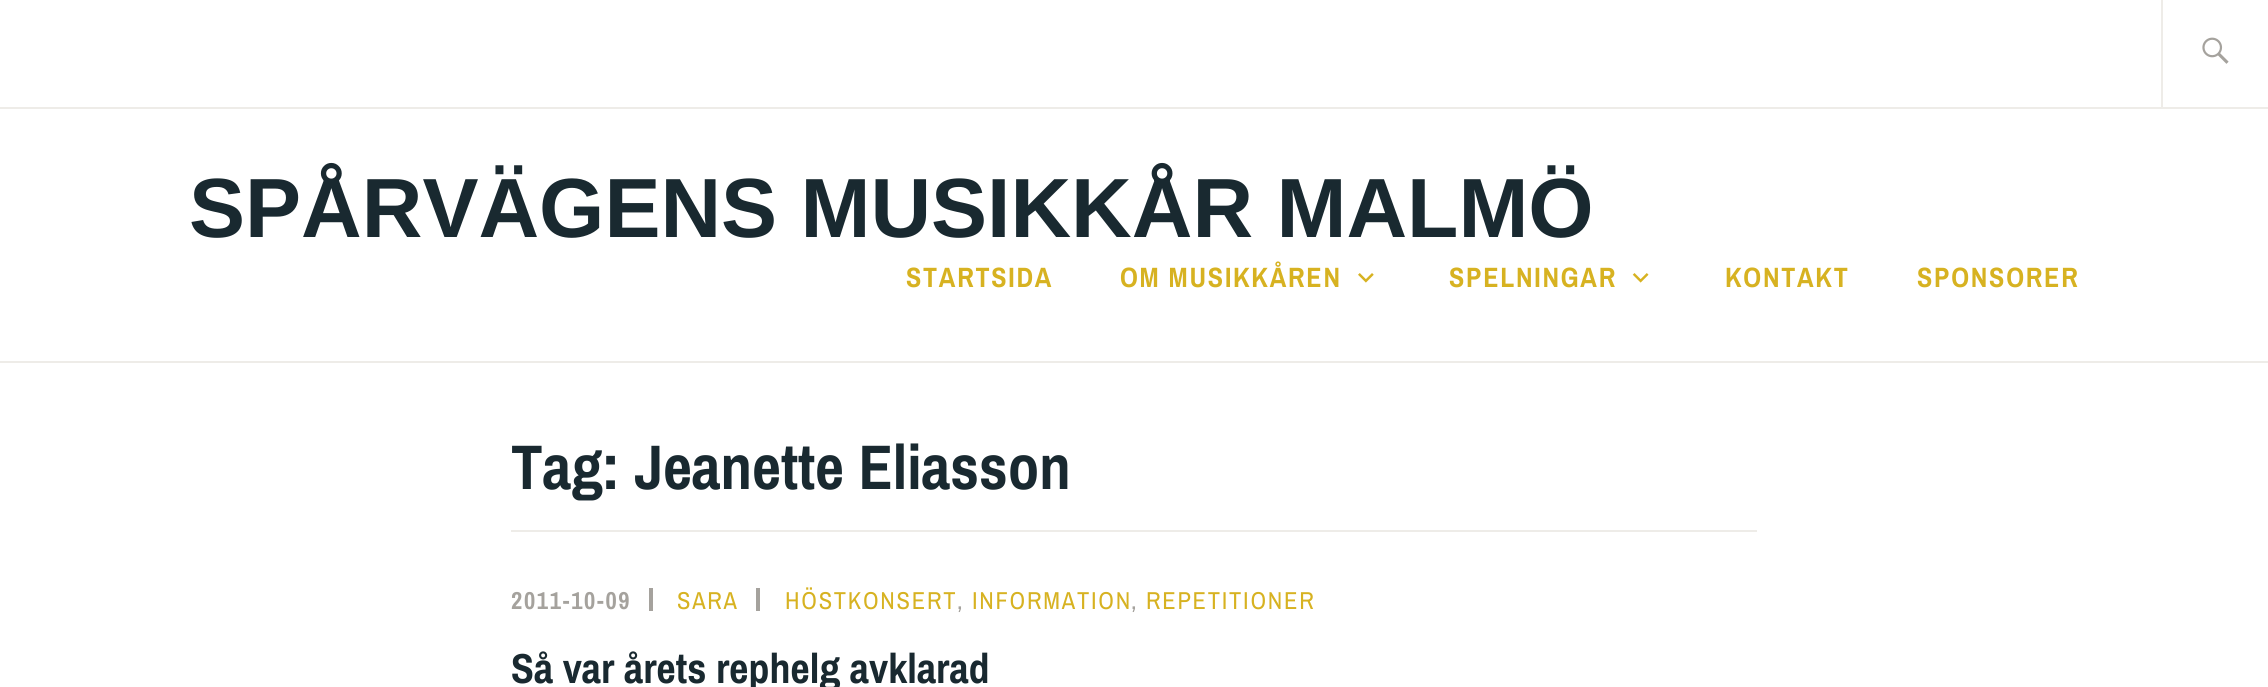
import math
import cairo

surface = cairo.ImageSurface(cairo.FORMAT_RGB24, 2268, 687)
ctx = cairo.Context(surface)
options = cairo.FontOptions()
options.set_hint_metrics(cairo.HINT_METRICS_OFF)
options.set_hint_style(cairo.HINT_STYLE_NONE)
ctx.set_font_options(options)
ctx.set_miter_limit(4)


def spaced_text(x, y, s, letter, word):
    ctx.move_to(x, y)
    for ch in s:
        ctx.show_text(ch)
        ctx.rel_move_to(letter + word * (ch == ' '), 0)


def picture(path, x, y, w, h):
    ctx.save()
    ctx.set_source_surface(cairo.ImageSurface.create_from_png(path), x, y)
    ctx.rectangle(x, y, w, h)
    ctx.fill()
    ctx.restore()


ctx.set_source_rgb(1, 1, 1)
ctx.paint()
ctx.set_source_rgb(0.933, 0.925, 0.91)
ctx.rectangle(0, 361, 2268, 2)
ctx.fill()
ctx.rectangle(0, 107, 2268, 2)
ctx.fill()
ctx.rectangle(2161, 0, 2, 107)
ctx.fill()
picture("img1.png", 2202, 37, 27, 27)
ctx.select_font_face("Liberation Sans", cairo.FONT_SLANT_NORMAL, cairo.FONT_WEIGHT_BOLD)
ctx.set_font_size(84)
ctx.set_source_rgb(0.098, 0.161, 0.188)
ctx.move_to(189, 237)
ctx.show_text("SPÅRVÄGENS MUSIKKÅR MALMÖ")
ctx.select_font_face("Archivo Narrow", cairo.FONT_SLANT_NORMAL, cairo.FONT_WEIGHT_BOLD)
ctx.set_font_size(28)
ctx.set_source_rgb(0.843, 0.698, 0.129)
spaced_text(906, 287, "STARTSIDA", 1.75, 0)
spaced_text(1120, 287, "OM MUSIKKÅREN", 1.75, 0)
picture("img2.png", 1358, 273, 16, 10)
spaced_text(1449, 287, "SPELNINGAR", 1.75, 0)
picture("img3.png", 1632, 273, 17, 10)
spaced_text(1725, 287, "KONTAKT", 1.75, 0)
spaced_text(1917, 287, "SPONSORER", 1.75, 0)
ctx.set_source_rgb(0.933, 0.925, 0.91)
ctx.rectangle(511, 530, 1246, 2)
ctx.fill()
ctx.set_font_size(63)
ctx.set_source_rgb(0.098, 0.161, 0.188)
ctx.move_to(511, 489)
ctx.show_text("Tag: Jeanette Eliasson")
ctx.set_font_size(24.5)
ctx.set_source_rgb(0.647, 0.635, 0.616)
spaced_text(511, 609, "2011-10-09", 1.75, 0)
ctx.rectangle(649, 588, 4, 23)
ctx.fill()
ctx.select_font_face("Archivo Narrow")
ctx.set_source_rgb(0.843, 0.698, 0.129)
spaced_text(677, 609, "SARA", 1.75, 0)
ctx.set_source_rgb(0.647, 0.635, 0.616)
ctx.rectangle(756, 588, 4, 23)
ctx.fill()
ctx.set_source_rgb(0.843, 0.698, 0.129)
spaced_text(785, 609, "HÖSTKONSERT", 1.75, 0)
ctx.set_source_rgb(0.647, 0.635, 0.616)
spaced_text(957, 609, ",", 1.75, 0)
ctx.set_source_rgb(0.843, 0.698, 0.129)
spaced_text(972, 609, "INFORMATION", 1.75, 0)
ctx.set_source_rgb(0.647, 0.635, 0.616)
spaced_text(1131, 609, ",", 1.75, 0)
ctx.set_source_rgb(0.843, 0.698, 0.129)
spaced_text(1146, 609, "REPETITIONER", 1.75, 0)
ctx.select_font_face("Archivo Narrow", cairo.FONT_SLANT_NORMAL, cairo.FONT_WEIGHT_BOLD)
ctx.set_font_size(42)
ctx.set_source_rgb(0.098, 0.161, 0.188)
ctx.move_to(511, 683)
ctx.show_text("Så var årets rephelg avklarad")
surface.write_to_png("page.png")
